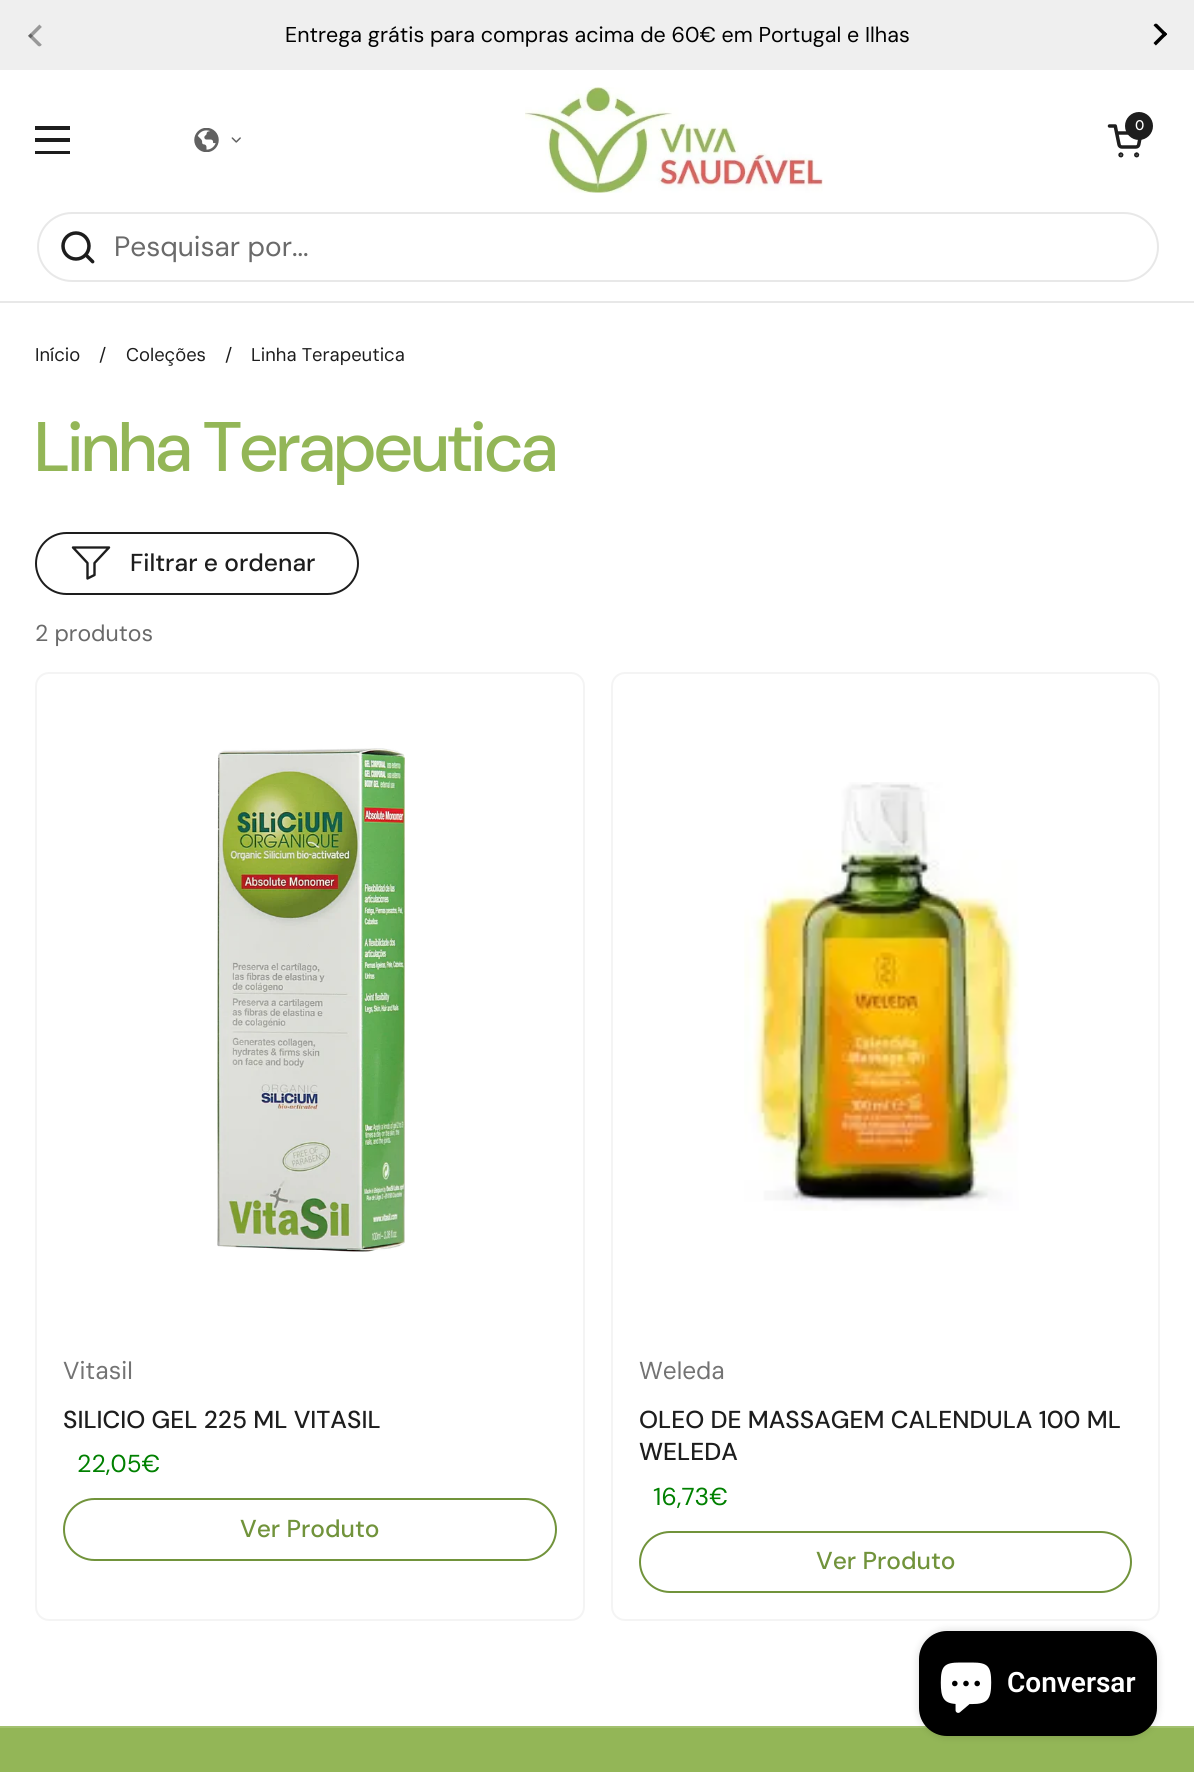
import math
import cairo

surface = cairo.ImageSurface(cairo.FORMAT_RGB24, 1194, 1772)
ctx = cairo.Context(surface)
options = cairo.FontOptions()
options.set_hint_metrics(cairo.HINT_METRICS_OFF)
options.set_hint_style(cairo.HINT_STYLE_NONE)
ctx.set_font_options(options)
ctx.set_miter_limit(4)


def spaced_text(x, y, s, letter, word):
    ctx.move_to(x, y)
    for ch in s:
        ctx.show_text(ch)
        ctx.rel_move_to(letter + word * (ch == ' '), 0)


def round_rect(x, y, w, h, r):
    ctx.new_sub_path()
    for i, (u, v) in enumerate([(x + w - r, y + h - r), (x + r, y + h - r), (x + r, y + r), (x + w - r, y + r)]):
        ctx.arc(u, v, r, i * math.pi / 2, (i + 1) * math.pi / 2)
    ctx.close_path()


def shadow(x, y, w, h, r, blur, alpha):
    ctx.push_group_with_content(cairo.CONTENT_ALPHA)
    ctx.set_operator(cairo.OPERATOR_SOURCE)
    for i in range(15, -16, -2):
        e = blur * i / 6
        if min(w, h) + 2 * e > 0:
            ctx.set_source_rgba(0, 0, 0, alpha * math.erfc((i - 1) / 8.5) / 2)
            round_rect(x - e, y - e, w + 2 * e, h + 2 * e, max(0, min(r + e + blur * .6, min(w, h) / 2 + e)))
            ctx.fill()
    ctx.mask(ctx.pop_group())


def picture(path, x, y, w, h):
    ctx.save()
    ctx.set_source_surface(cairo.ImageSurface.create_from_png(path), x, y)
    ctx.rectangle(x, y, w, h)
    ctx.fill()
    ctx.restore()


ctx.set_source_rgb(1, 1, 1)
ctx.paint()
ctx.set_source_rgb(0.937, 0.937, 0.937)
ctx.rectangle(0, 0, 1194, 70)
ctx.fill()
picture("img1.png", 28, 24, 14, 23)
ctx.select_font_face("DM Sans")
ctx.set_font_size(21.45)
ctx.set_source_rgb(0, 0, 0)
ctx.move_to(285, 42)
ctx.show_text("Entrega grátis para compras acima de 60€ em Portugal e Ilhas")
picture("img2.png", 1153, 23, 15, 23)
ctx.set_source_rgb(0.114, 0.114, 0.114)
ctx.rectangle(35, 126, 35, 4)
ctx.fill()
ctx.rectangle(35, 138, 35, 4)
ctx.fill()
ctx.rectangle(35, 151, 35, 3)
ctx.fill()
picture("img3.png", 194, 128, 25, 24)
picture("img4.png", 231, 137, 10, 6)
picture("img5.png", 525, 87, 298, 106)
picture("img6.png", 1107, 124, 35, 34)
ctx.arc(1139, 126, 14, 0, 2 * math.pi)
ctx.fill()
ctx.select_font_face("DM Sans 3 Medium")
ctx.set_font_size(14)
ctx.set_source_rgb(1, 1, 1)
ctx.move_to(1135, 130)
ctx.show_text("0")
ctx.set_source_rgb(0.91, 0.91, 0.91)
ctx.rectangle(0, 301, 1194, 2)
ctx.fill()
round_rect(38, 213, 1120, 68, 34)
ctx.stroke()
picture("img7.png", 61, 231, 34, 33)
ctx.select_font_face("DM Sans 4")
ctx.set_font_size(28)
ctx.set_source_rgb(0.416, 0.416, 0.416)
ctx.move_to(114, 256)
ctx.show_text("Pesquisar por...")
ctx.select_font_face("DM Sans 3")
ctx.set_font_size(18.4)
ctx.set_source_rgb(0.114, 0.114, 0.114)
ctx.move_to(35, 361)
ctx.show_text("Início")
ctx.move_to(99, 361)
ctx.show_text("/")
ctx.move_to(126, 361)
ctx.show_text("Coleções")
ctx.move_to(225, 361)
ctx.show_text("/")
ctx.move_to(251, 361)
ctx.show_text("Linha Terapeutica")
ctx.select_font_face("DM Sans Medium")
ctx.set_font_size(70)
ctx.set_source_rgb(0.576, 0.714, 0.341)
spaced_text(35, 471, "Linha Terapeutica", -0.75, 0)
round_rect(36, 533, 322, 61, 30.5)
ctx.set_source_rgb(0.114, 0.114, 0.114)
ctx.stroke()
ctx.new_path()
ctx.move_to(73, 547.5)
ctx.line_to(109, 547.5)
ctx.line_to(94.5, 563)
ctx.line_to(94.5, 575)
ctx.line_to(87.5, 578.5)
ctx.line_to(87.5, 563)
ctx.close_path()
ctx.set_line_width(2.4)
ctx.set_line_cap(cairo.LINE_CAP_ROUND)
ctx.set_line_join(cairo.LINE_JOIN_ROUND)
ctx.stroke()
ctx.select_font_face("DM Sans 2 Medium")
ctx.set_font_size(24.5)
ctx.move_to(130, 571)
ctx.show_text("Filtrar e ordenar")
ctx.select_font_face("DM Sans 2")
ctx.set_font_size(23)
ctx.set_source_rgb(0.416, 0.416, 0.416)
ctx.move_to(35, 641)
ctx.show_text("2 produtos")
round_rect(36, 673, 548, 947, 13)
ctx.set_source_rgb(0.957, 0.957, 0.957)
ctx.set_line_width(2)
ctx.set_line_cap(cairo.LINE_CAP_BUTT)
ctx.set_line_join(cairo.LINE_JOIN_MITER)
ctx.stroke()
picture("img8.png", 217, 748, 188, 504)
ctx.select_font_face("DM Sans 3")
ctx.set_font_size(24.5)
ctx.set_source_rgb(0.451, 0.451, 0.451)
ctx.move_to(63, 1379)
ctx.show_text("Vitasil")
ctx.select_font_face("DM Sans 2 Medium")
ctx.set_source_rgb(0.114, 0.114, 0.114)
ctx.move_to(63, 1428)
ctx.show_text("SILICIO GEL 225 ML VITASIL")
ctx.select_font_face("DM Sans 3")
ctx.set_source_rgb(0, 0.502, 0)
ctx.move_to(77, 1472)
ctx.show_text("22,05€")
round_rect(64, 1499, 492, 61, 30.5)
ctx.set_source_rgb(0.443, 0.576, 0.231)
ctx.stroke()
ctx.select_font_face("DM Sans 2 Medium")
ctx.move_to(240, 1537)
ctx.show_text("Ver Produto")
round_rect(612, 673, 547, 947, 13)
ctx.set_source_rgb(0.957, 0.957, 0.957)
ctx.stroke()
picture("img9.png", 744, 782, 275, 429)
ctx.select_font_face("DM Sans 3")
ctx.set_source_rgb(0.451, 0.451, 0.451)
ctx.move_to(639, 1379)
ctx.show_text("Weleda")
ctx.select_font_face("DM Sans 2 Medium")
ctx.set_source_rgb(0.114, 0.114, 0.114)
ctx.move_to(639, 1428)
ctx.show_text("OLEO DE MASSAGEM CALENDULA 100 ML")
ctx.move_to(639, 1460)
ctx.show_text("WELEDA")
ctx.select_font_face("DM Sans 3")
ctx.set_source_rgb(0, 0.502, 0)
ctx.move_to(653, 1505)
ctx.show_text("16,73€")
round_rect(640, 1532, 491, 60, 30)
ctx.set_source_rgb(0.443, 0.576, 0.231)
ctx.stroke()
ctx.select_font_face("DM Sans 2 Medium")
ctx.move_to(816, 1569)
ctx.show_text("Ver Produto")
ctx.set_source_rgb(0.576, 0.714, 0.341)
ctx.rectangle(0, 1728, 1194, 44)
ctx.fill()
ctx.set_source_rgb(0.639, 0.757, 0.439)
ctx.rectangle(0, 1726, 1194, 2)
ctx.fill()
ctx.set_source_rgb(0, 0, 0)
shadow(919, 1631, 238, 105, 28, 4.5, 0.15)
ctx.set_source_rgb(0, 0, 0)
round_rect(919, 1631, 238, 105, 28)
ctx.fill()
picture("img10.png", 940, 1662, 52, 51)
ctx.select_font_face("Roboto SemiBold")
ctx.set_font_size(28)
ctx.set_source_rgb(1, 1, 1)
ctx.move_to(1007, 1692)
ctx.show_text("Conversar")
surface.write_to_png("page.png")
